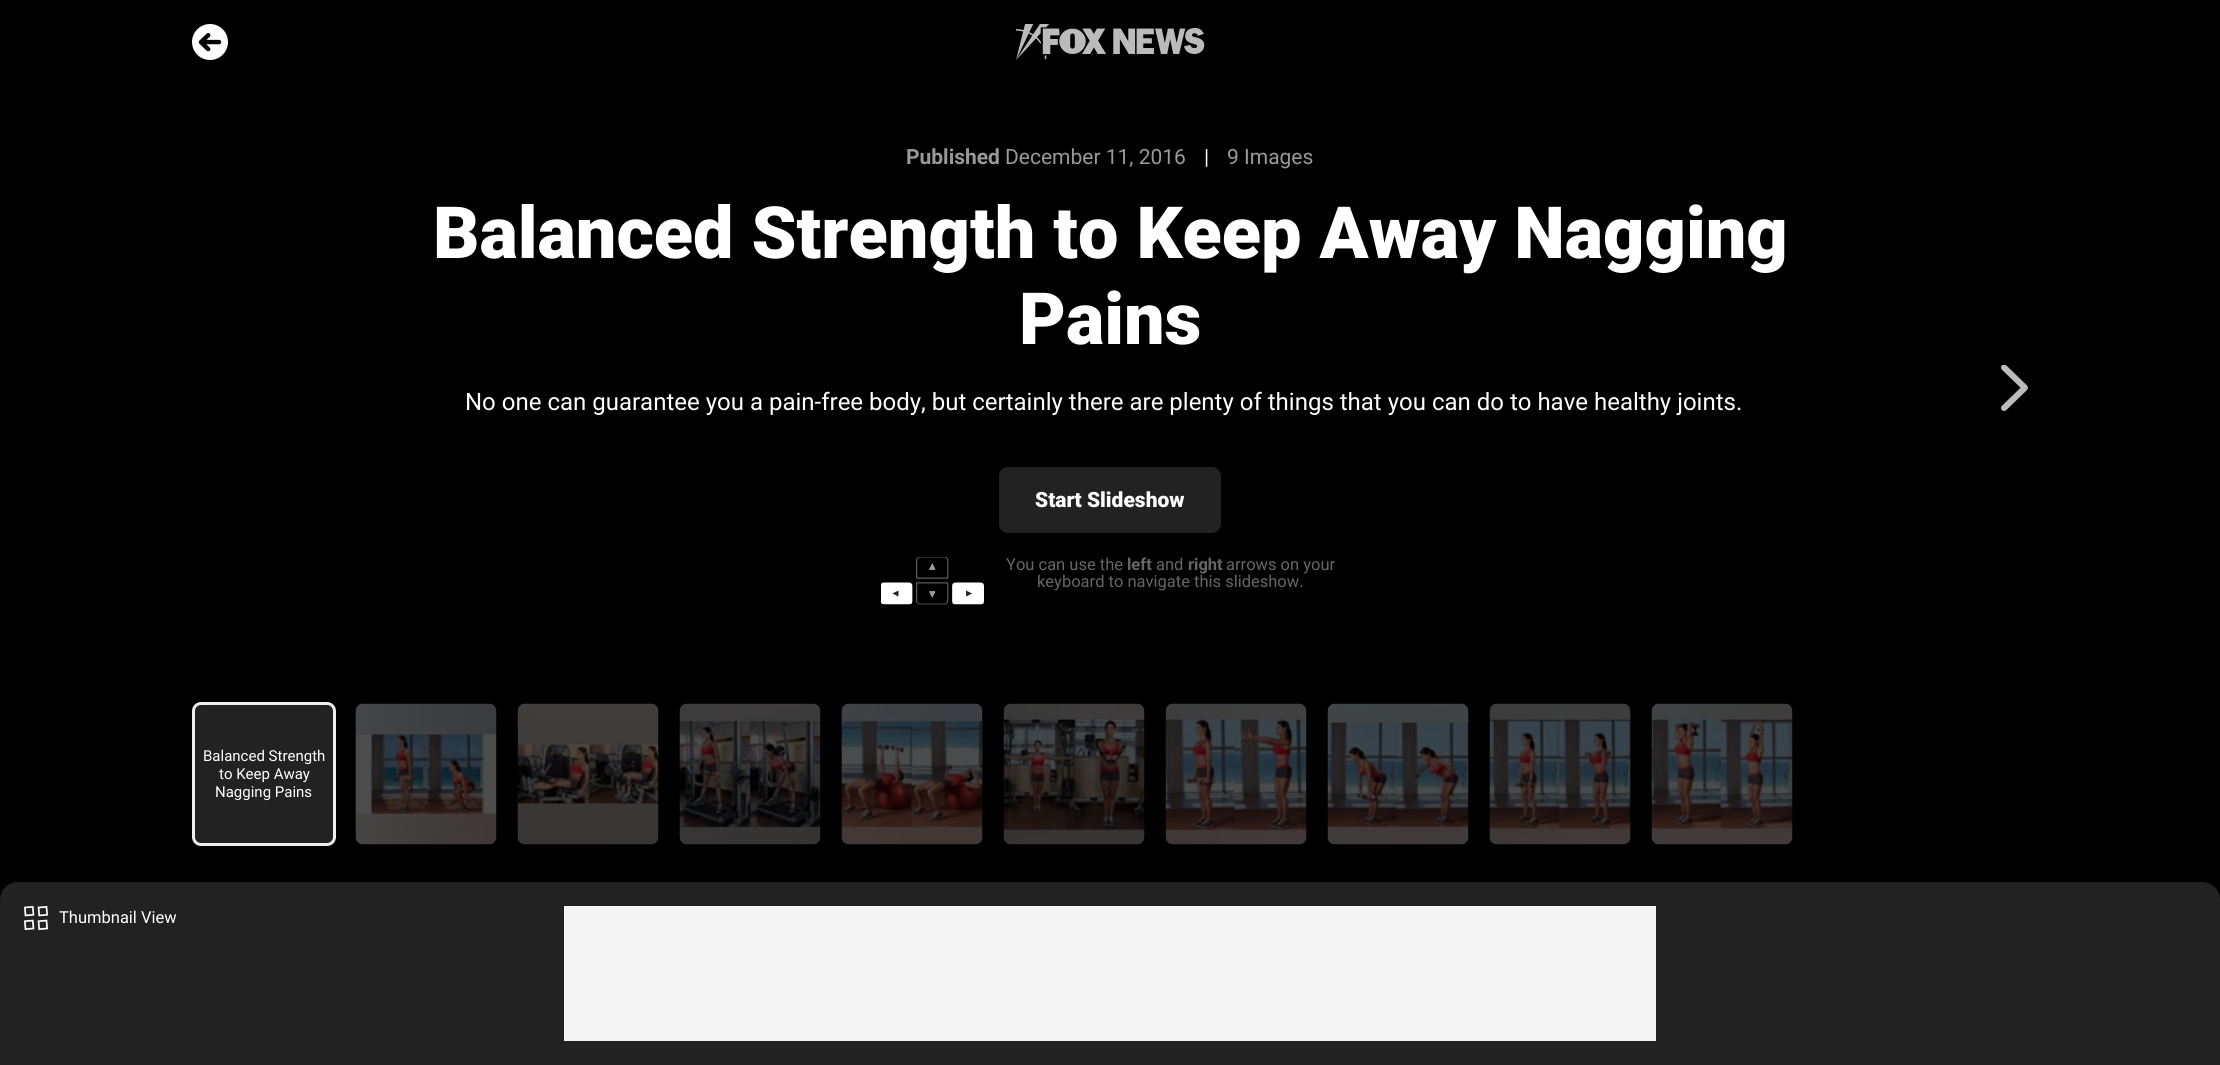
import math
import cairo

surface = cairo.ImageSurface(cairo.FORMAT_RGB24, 2220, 1065)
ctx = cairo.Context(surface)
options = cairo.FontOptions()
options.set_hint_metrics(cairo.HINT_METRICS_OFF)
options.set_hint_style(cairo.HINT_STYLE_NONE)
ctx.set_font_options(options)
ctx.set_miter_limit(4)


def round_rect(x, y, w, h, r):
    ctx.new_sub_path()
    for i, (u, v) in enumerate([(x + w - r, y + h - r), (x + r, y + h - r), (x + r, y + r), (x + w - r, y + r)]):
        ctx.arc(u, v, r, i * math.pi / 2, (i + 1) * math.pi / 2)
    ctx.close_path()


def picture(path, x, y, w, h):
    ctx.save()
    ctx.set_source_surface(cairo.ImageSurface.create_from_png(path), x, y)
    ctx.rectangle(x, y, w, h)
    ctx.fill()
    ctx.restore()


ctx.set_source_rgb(0, 0, 0)
ctx.paint()
picture("img1.png", 192, 24, 36, 36)
picture("img2.png", 1016, 24, 189, 36)
ctx.select_font_face("Roboto", cairo.FONT_SLANT_NORMAL, cairo.FONT_WEIGHT_BOLD)
ctx.set_font_size(21)
ctx.set_source_rgb(0.6, 0.6, 0.6)
ctx.move_to(906, 164)
ctx.show_text("Published")
ctx.select_font_face("Roboto")
ctx.move_to(1005, 164)
ctx.show_text("December 11, 2016")
ctx.set_source_rgb(1, 1, 1)
ctx.move_to(1204, 164)
ctx.show_text("|")
ctx.set_source_rgb(0.6, 0.6, 0.6)
ctx.move_to(1227, 164)
ctx.show_text("9 Images")
ctx.select_font_face("Roboto Black")
ctx.set_font_size(72)
ctx.set_source_rgb(1, 1, 1)
ctx.move_to(433, 258)
ctx.show_text("Balanced Strength to Keep Away Nagging")
ctx.move_to(1019, 344)
ctx.show_text("Pains")
ctx.select_font_face("Roboto")
ctx.set_font_size(24)
ctx.move_to(465, 410)
ctx.show_text("No one can guarantee you a pain-free body, but certainly there are plenty of things that you can do to have healthy joints.")
ctx.set_source_rgb(0.133, 0.133, 0.133)
round_rect(999, 467, 222, 66, 9)
ctx.fill()
ctx.select_font_face("Roboto Black")
ctx.set_font_size(21)
ctx.set_source_rgb(1, 1, 1)
ctx.move_to(1035, 507)
ctx.show_text("Start Slideshow")
picture("img3.png", 881, 557, 103, 48)
ctx.select_font_face("Roboto")
ctx.set_font_size(16.5)
ctx.set_source_rgb(0.4, 0.4, 0.4)
ctx.move_to(1006, 570)
ctx.show_text("You can use the")
ctx.select_font_face("Roboto", cairo.FONT_SLANT_NORMAL, cairo.FONT_WEIGHT_BOLD)
ctx.move_to(1127, 570)
ctx.show_text("left")
ctx.select_font_face("Roboto")
ctx.move_to(1156, 570)
ctx.show_text("and")
ctx.select_font_face("Roboto", cairo.FONT_SLANT_NORMAL, cairo.FONT_WEIGHT_BOLD)
ctx.move_to(1188, 570)
ctx.show_text("right")
ctx.select_font_face("Roboto")
ctx.move_to(1226, 570)
ctx.show_text("arrows on your")
ctx.move_to(1037, 587)
ctx.show_text("keyboard to navigate this slideshow.")
picture("img4.png", 2001, 365, 27, 46)
ctx.set_source_rgb(0.133, 0.133, 0.133)
round_rect(193.5, 703.5, 141, 141, 7.5)
ctx.fill_preserve()
ctx.set_source_rgb(0.933, 0.933, 0.933)
ctx.set_line_width(3)
ctx.stroke()
ctx.set_font_size(15)
ctx.set_source_rgb(1, 1, 1)
ctx.move_to(203, 761)
ctx.show_text("Balanced Strength")
ctx.move_to(219, 779)
ctx.show_text("to Keep Away")
ctx.move_to(215, 797)
ctx.show_text("Nagging Pains")
picture("img5.png", 355, 703, 142, 142)
picture("img6.png", 517, 703, 142, 142)
picture("img7.png", 679, 703, 142, 142)
picture("img8.png", 841, 703, 142, 142)
picture("img9.png", 1003, 703, 142, 142)
picture("img10.png", 1165, 703, 142, 142)
picture("img11.png", 1327, 703, 142, 142)
picture("img12.png", 1489, 703, 142, 142)
picture("img13.png", 1651, 703, 142, 142)
ctx.set_source_rgb(0.133, 0.133, 0.133)
ctx.new_path()
ctx.move_to(18, 882)
ctx.line_to(2202, 882)
ctx.curve_to(2212, 882, 2220, 890, 2220, 900)
ctx.line_to(2220, 1065)
ctx.line_to(0, 1065)
ctx.line_to(0, 900)
ctx.curve_to(0, 890, 8, 882, 18, 882)
ctx.close_path()
ctx.fill()
picture("img14.png", 24, 906, 24, 24)
ctx.set_font_size(16.5)
ctx.set_source_rgb(1, 1, 1)
ctx.move_to(59, 923)
ctx.show_text("Thumbnail View")
ctx.set_source_rgb(0.957, 0.957, 0.957)
ctx.rectangle(564, 906, 1092, 135)
ctx.fill()
surface.write_to_png("page.png")
